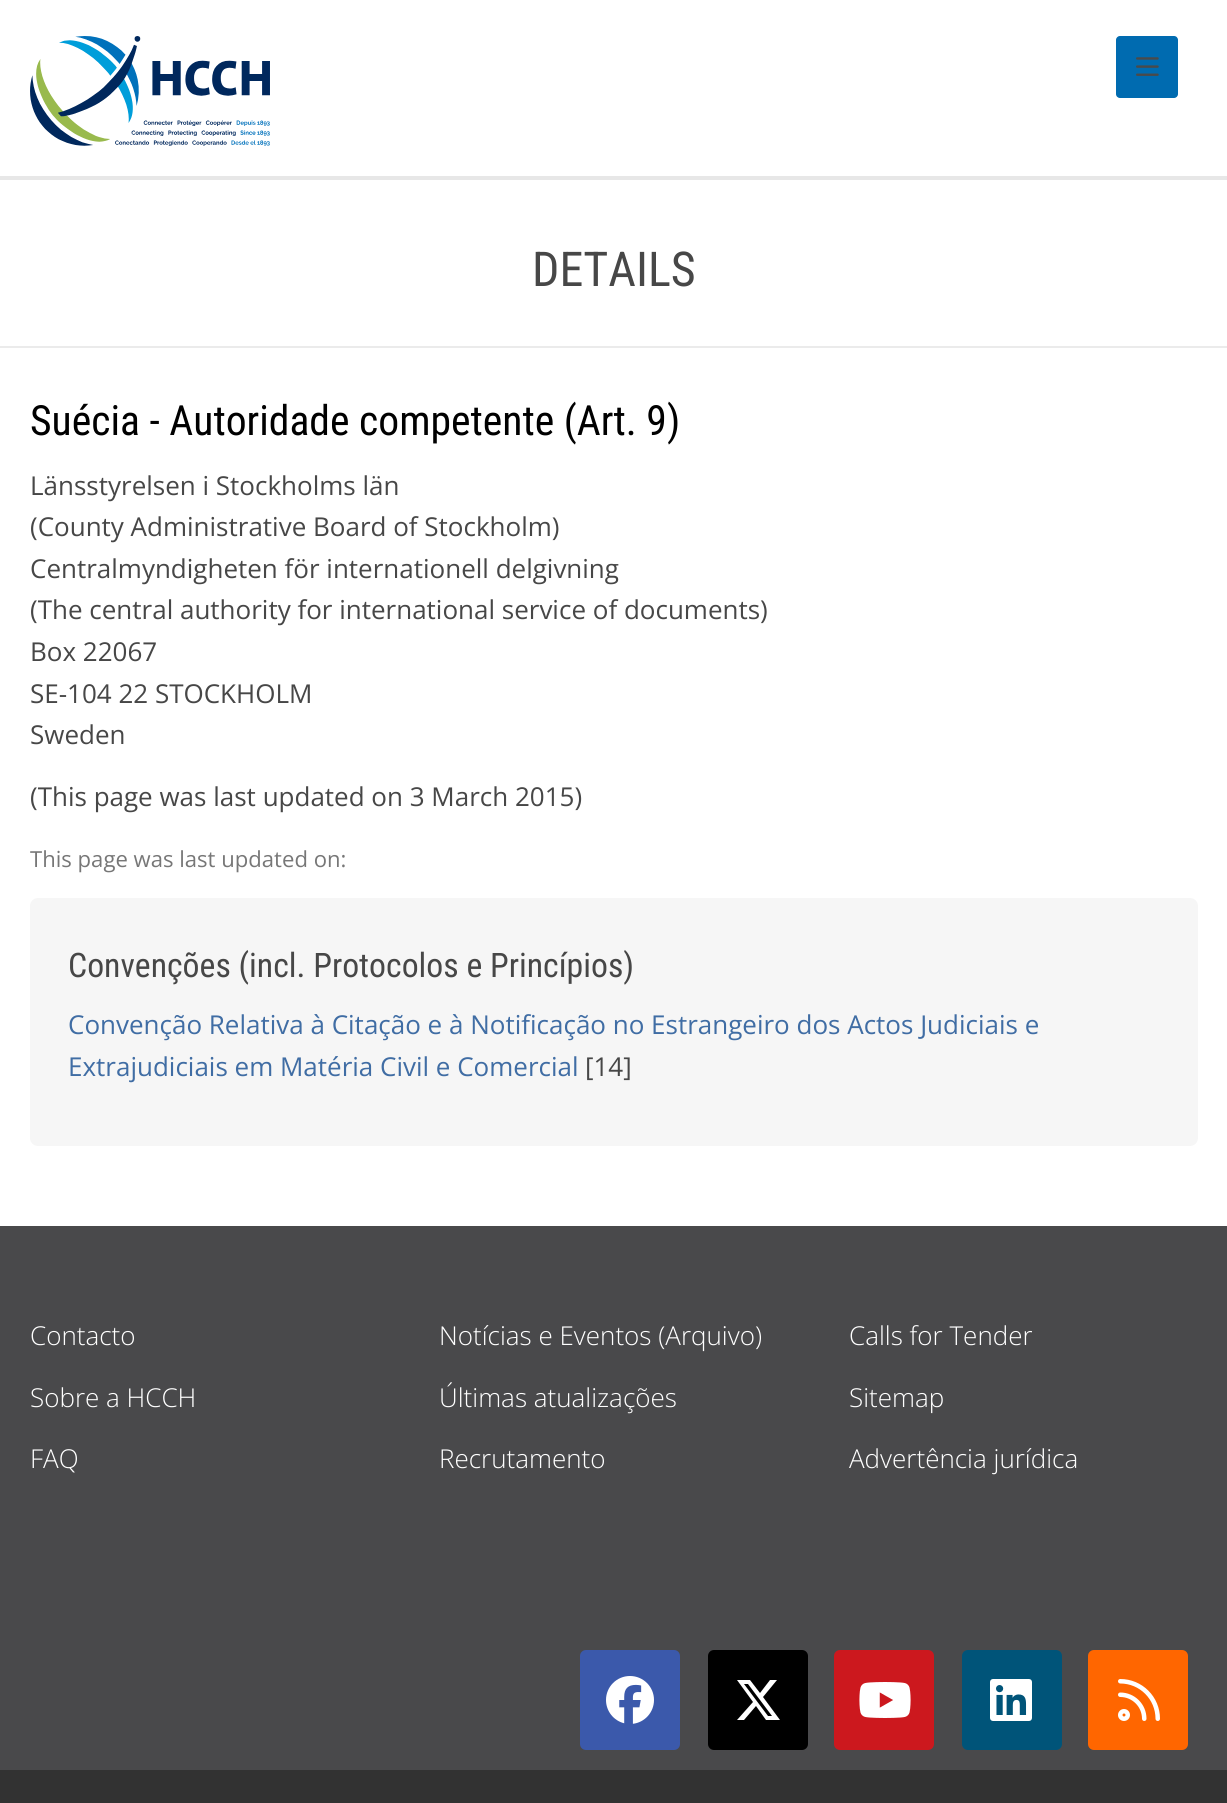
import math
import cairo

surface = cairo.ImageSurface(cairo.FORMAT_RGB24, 1227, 1803)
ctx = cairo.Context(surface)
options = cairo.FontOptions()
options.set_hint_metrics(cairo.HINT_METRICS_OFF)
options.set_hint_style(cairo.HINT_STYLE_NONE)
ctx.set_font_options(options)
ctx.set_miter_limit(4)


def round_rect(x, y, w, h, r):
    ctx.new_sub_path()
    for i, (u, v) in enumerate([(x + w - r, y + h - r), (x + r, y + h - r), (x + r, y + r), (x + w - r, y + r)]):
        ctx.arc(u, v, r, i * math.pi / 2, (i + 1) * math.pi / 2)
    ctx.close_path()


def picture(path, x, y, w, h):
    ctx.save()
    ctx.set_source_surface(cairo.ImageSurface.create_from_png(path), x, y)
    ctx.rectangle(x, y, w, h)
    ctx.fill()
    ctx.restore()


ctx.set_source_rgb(1, 1, 1)
ctx.paint()
ctx.set_source_rgb(0.906, 0.906, 0.906)
ctx.rectangle(0, 176, 1227, 4)
ctx.fill()
picture("img1.png", 30, 36, 240, 110)
ctx.set_source_rgb(0, 0.42, 0.69)
round_rect(1116, 36, 62, 62, 4)
ctx.fill()
picture("img2.png", 1136, 57, 23, 19)
ctx.set_source_rgb(0.918, 0.918, 0.918)
ctx.rectangle(0, 346, 1227, 2)
ctx.fill()
ctx.select_font_face("Roboto Condensed")
ctx.set_font_size(48)
ctx.set_source_rgb(0.278, 0.278, 0.278)
ctx.move_to(532, 286)
ctx.show_text("DETAILS")
ctx.set_font_size(41.6)
ctx.set_source_rgb(0, 0, 0)
ctx.move_to(30, 435)
ctx.show_text("Suécia - Autoridade competente (Art. 9)")
ctx.select_font_face("Open Sans")
ctx.set_font_size(26)
ctx.set_source_rgb(0.278, 0.278, 0.278)
ctx.move_to(30, 495)
ctx.show_text("Länsstyrelsen i Stockholms län")
ctx.move_to(30, 536)
ctx.show_text("(County Administrative Board of Stockholm)")
ctx.move_to(30, 578)
ctx.show_text("Centralmyndigheten för internationell delgivning")
ctx.move_to(30, 619)
ctx.show_text("(The central authority for international service of documents)")
ctx.move_to(30, 661)
ctx.show_text("Box 22067")
ctx.move_to(30, 703)
ctx.show_text("SE-104 22 STOCKHOLM")
ctx.move_to(30, 744)
ctx.show_text("Sweden")
ctx.move_to(30, 806)
ctx.show_text("(This page was last updated on 3 March 2015)")
ctx.set_font_size(22.1)
ctx.set_source_rgb(0.467, 0.467, 0.467)
ctx.move_to(30, 867)
ctx.show_text("This page was last updated on:")
ctx.set_source_rgb(0.961, 0.961, 0.961)
round_rect(30, 898, 1168, 248, 8)
ctx.fill()
ctx.select_font_face("Roboto Condensed")
ctx.set_font_size(33.75)
ctx.set_source_rgb(0.278, 0.278, 0.278)
ctx.move_to(68, 977)
ctx.show_text("Convenções (incl. Protocolos e Princípios)")
ctx.select_font_face("Open Sans")
ctx.set_font_size(26)
ctx.set_source_rgb(0.251, 0.427, 0.643)
ctx.move_to(68, 1034)
ctx.show_text("Convenção Relativa à Citação e à Notificação no Estrangeiro dos Actos Judiciais e")
ctx.move_to(68, 1076)
ctx.show_text("Extrajudiciais em Matéria Civil e Comercial")
ctx.set_source_rgb(0.278, 0.278, 0.278)
ctx.move_to(585, 1076)
ctx.show_text("[14]")
ctx.set_source_rgb(0.286, 0.286, 0.294)
ctx.rectangle(0, 1226, 1227, 544)
ctx.fill()
ctx.select_font_face("Open Sans Light")
ctx.set_source_rgb(1, 1, 1)
ctx.move_to(30, 1345)
ctx.show_text("Contacto")
ctx.move_to(30, 1407)
ctx.show_text("Sobre a HCCH")
ctx.move_to(30, 1468)
ctx.show_text("FAQ")
ctx.move_to(439, 1345)
ctx.show_text("Notícias e Eventos (Arquivo)")
ctx.move_to(439, 1407)
ctx.show_text("Últimas atualizações")
ctx.move_to(439, 1468)
ctx.show_text("Recrutamento")
ctx.move_to(849, 1345)
ctx.show_text("Calls for Tender")
ctx.move_to(849, 1407)
ctx.show_text("Sitemap")
ctx.move_to(849, 1468)
ctx.show_text("Advertência jurídica")
ctx.set_source_rgb(0.231, 0.349, 0.671)
round_rect(580, 1650, 100, 100, 6)
ctx.fill()
picture("img3.png", 606, 1676, 48, 48)
ctx.set_source_rgb(0, 0, 0)
round_rect(708, 1650, 100, 100, 6)
ctx.fill()
ctx.set_source_rgb(1, 1, 1)
ctx.new_path()
ctx.move_to(770, 1680)
ctx.line_to(777, 1680)
ctx.line_to(763, 1697)
ctx.line_to(780, 1720)
ctx.line_to(766, 1720)
ctx.line_to(756, 1706)
ctx.line_to(744, 1720)
ctx.line_to(737, 1720)
ctx.line_to(753, 1702)
ctx.line_to(737, 1680)
ctx.line_to(750, 1680)
ctx.line_to(760, 1693)
ctx.close_path()
ctx.move_to(768, 1716)
ctx.line_to(772, 1716)
ctx.line_to(748, 1684)
ctx.line_to(744, 1684)
ctx.close_path()
ctx.fill()
ctx.set_source_rgb(0.8, 0.094, 0.118)
round_rect(834, 1650, 100, 100, 6)
ctx.fill()
picture("img4.png", 859, 1682, 52, 36)
ctx.set_source_rgb(0, 0.329, 0.475)
round_rect(962, 1650, 100, 100, 6)
ctx.fill()
picture("img5.png", 990, 1679, 42, 42)
ctx.set_source_rgb(1, 0.4, 0)
round_rect(1088, 1650, 100, 100, 6)
ctx.fill()
picture("img6.png", 1118, 1679, 42, 42)
ctx.set_source_rgb(0.196, 0.196, 0.196)
ctx.rectangle(0, 1770, 1227, 33)
ctx.fill()
surface.write_to_png("page.png")
